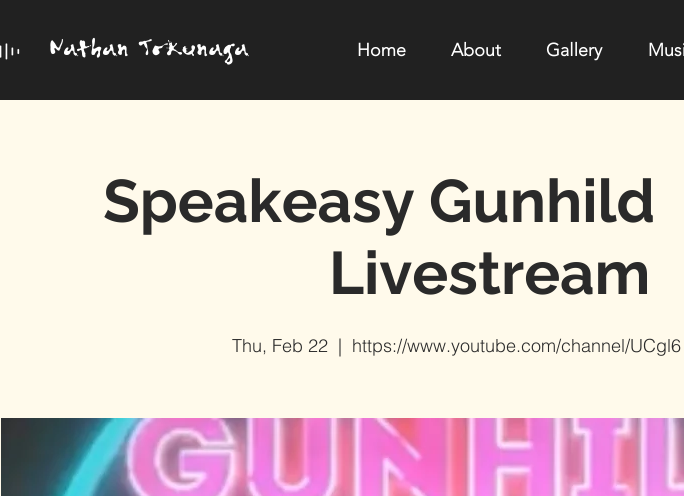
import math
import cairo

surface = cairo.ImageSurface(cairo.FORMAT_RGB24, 684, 496)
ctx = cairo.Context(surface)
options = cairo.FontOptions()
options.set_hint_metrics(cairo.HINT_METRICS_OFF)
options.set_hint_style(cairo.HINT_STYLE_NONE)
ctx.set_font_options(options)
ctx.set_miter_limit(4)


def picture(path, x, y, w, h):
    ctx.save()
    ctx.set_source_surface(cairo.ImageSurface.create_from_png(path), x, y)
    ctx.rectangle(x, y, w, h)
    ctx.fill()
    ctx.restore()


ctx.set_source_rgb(0.129, 0.129, 0.129)
ctx.paint()
picture("img1.png", 0, 43, 20, 17)
ctx.select_font_face("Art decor")
ctx.set_font_size(24)
ctx.set_source_rgb(1, 1, 1)
ctx.move_to(49, 55)
ctx.show_text("Nathan Tokunaga")
ctx.select_font_face("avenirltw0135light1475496", cairo.FONT_SLANT_NORMAL, cairo.FONT_WEIGHT_BOLD)
ctx.set_font_size(18)
ctx.move_to(357, 56)
ctx.show_text("Home")
ctx.move_to(451, 56)
ctx.show_text("About")
ctx.move_to(546, 56)
ctx.show_text("Gallery")
ctx.move_to(648, 56)
ctx.show_text("Musi")
ctx.set_source_rgb(1, 0.98, 0.918)
ctx.rectangle(0, 100, 684, 396)
ctx.fill()
ctx.select_font_face("Raleway", cairo.FONT_SLANT_NORMAL, cairo.FONT_WEIGHT_BOLD)
ctx.set_font_size(60)
ctx.set_source_rgb(0.165, 0.165, 0.165)
ctx.move_to(103, 222)
ctx.show_text("Speakeasy Gunhild")
ctx.move_to(329, 294)
ctx.show_text("Livestream")
ctx.select_font_face("helvetica Light")
ctx.set_font_size(18)
ctx.move_to(232, 352)
ctx.show_text("Thu, Feb 22")
ctx.move_to(338, 352)
ctx.show_text("|")
ctx.move_to(352, 352)
ctx.show_text("https://www.youtube.com/channel/UCgl6")
picture("img2.png", 1, 418, 683, 78)
surface.write_to_png("page.png")
